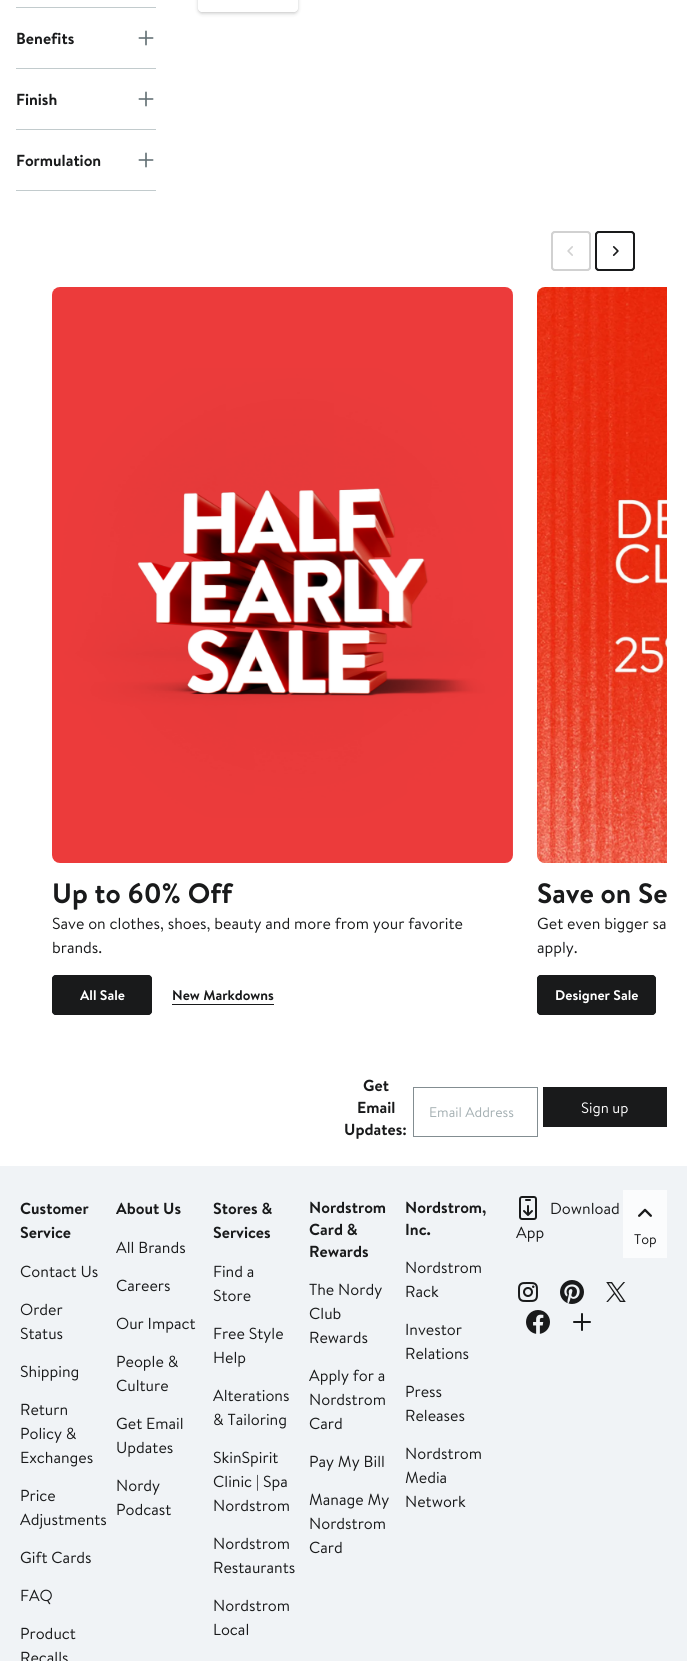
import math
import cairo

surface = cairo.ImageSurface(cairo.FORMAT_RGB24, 687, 1661)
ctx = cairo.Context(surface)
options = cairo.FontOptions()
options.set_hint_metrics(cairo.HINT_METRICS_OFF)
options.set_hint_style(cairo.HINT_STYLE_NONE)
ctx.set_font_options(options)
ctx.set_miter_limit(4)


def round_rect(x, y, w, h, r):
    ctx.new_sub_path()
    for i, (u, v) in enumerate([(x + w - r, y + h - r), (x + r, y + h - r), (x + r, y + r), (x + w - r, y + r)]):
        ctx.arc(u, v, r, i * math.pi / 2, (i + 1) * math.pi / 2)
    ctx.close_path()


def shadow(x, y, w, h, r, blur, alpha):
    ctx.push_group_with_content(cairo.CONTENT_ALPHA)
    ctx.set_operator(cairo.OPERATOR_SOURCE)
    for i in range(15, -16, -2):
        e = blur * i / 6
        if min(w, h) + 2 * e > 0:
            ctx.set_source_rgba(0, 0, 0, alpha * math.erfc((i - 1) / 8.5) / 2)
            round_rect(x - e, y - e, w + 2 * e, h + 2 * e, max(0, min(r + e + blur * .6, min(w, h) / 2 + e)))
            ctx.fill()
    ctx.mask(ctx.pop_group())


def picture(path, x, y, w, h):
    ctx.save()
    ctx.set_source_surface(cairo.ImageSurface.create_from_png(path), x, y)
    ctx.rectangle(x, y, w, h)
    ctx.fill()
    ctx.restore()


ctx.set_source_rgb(1, 1, 1)
ctx.paint()
ctx.save()
ctx.set_fill_rule(cairo.FILL_RULE_EVEN_ODD)
ctx.new_path()
ctx.move_to(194, 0)
ctx.line_to(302, 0)
ctx.line_to(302, 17)
ctx.line_to(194, 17)
ctx.close_path()
ctx.move_to(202, -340)
ctx.line_to(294, -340)
ctx.curve_to(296, -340, 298, -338, 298, -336)
ctx.line_to(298, 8)
ctx.curve_to(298, 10, 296, 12, 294, 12)
ctx.line_to(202, 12)
ctx.curve_to(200, 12, 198, 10, 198, 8)
ctx.line_to(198, -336)
ctx.curve_to(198, -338, 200, -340, 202, -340)
ctx.close_path()
ctx.clip()
ctx.set_source_rgb(0.098, 0.102, 0.106)
shadow(198, -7, 100, 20, 4, 1, 0.09)
ctx.restore()
ctx.save()
ctx.set_fill_rule(cairo.FILL_RULE_EVEN_ODD)
ctx.new_path()
ctx.move_to(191, 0)
ctx.line_to(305, 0)
ctx.line_to(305, 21)
ctx.line_to(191, 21)
ctx.close_path()
ctx.move_to(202, -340)
ctx.line_to(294, -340)
ctx.curve_to(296, -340, 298, -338, 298, -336)
ctx.line_to(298, 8)
ctx.curve_to(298, 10, 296, 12, 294, 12)
ctx.line_to(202, 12)
ctx.curve_to(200, 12, 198, 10, 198, 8)
ctx.line_to(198, -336)
ctx.curve_to(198, -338, 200, -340, 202, -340)
ctx.close_path()
ctx.clip()
ctx.set_source_rgb(0.098, 0.102, 0.106)
shadow(198, -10, 100, 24, 4, 2, 0.15)
ctx.restore()
ctx.set_source_rgb(0.761, 0.796, 0.804)
ctx.rectangle(16, 7, 140, 1)
ctx.fill()
ctx.rectangle(16, 68, 140, 1)
ctx.fill()
ctx.select_font_face("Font", cairo.FONT_SLANT_NORMAL, cairo.FONT_WEIGHT_BOLD)
ctx.set_font_size(16)
ctx.set_source_rgb(0.098, 0.102, 0.106)
ctx.move_to(16, 44)
ctx.show_text("Benefits")
picture("img1.png", 138, 30, 16, 16)
ctx.set_source_rgb(0.761, 0.796, 0.804)
ctx.rectangle(16, 129, 140, 1)
ctx.fill()
ctx.set_source_rgb(0.098, 0.102, 0.106)
ctx.move_to(16, 105)
ctx.show_text("Finish")
picture("img1.png", 138, 91, 16, 16)
ctx.set_source_rgb(0.761, 0.796, 0.804)
ctx.rectangle(16, 190, 140, 1)
ctx.fill()
ctx.set_source_rgb(0.098, 0.102, 0.106)
ctx.move_to(16, 166)
ctx.show_text("Formulation")
picture("img1.png", 138, 152, 16, 16)
round_rect(552, 232, 38, 38, 3)
ctx.set_source_rgb(0.82, 0.82, 0.82)
ctx.stroke()
ctx.set_source_rgb(1, 1, 1)
round_rect(552, 232, 38, 38, 3)
ctx.fill_preserve()
ctx.set_source_rgb(0.82, 0.82, 0.82)
ctx.stroke()
picture("img2.png", 567, 246, 6, 10)
round_rect(596, 232, 38, 38, 3)
ctx.set_source_rgb(0.098, 0.102, 0.106)
ctx.stroke()
ctx.set_source_rgb(1, 1, 1)
round_rect(596, 232, 38, 38, 3)
ctx.fill_preserve()
ctx.set_source_rgb(0.098, 0.102, 0.106)
ctx.stroke()
picture("img3.png", 612, 246, 7, 10)
picture("img4.png", 52, 287, 461, 576)
ctx.set_font_size(28)
ctx.move_to(52, 903)
ctx.show_text("Up to 60% Off")
ctx.select_font_face("Font")
ctx.set_font_size(16)
ctx.move_to(52, 929)
ctx.show_text("Save on clothes, shoes, beauty and more from your favorite")
ctx.move_to(52, 953)
ctx.show_text("brands.")
round_rect(53, 976, 98, 38, 3)
ctx.stroke()
round_rect(53, 976, 98, 38, 3)
ctx.fill_preserve()
ctx.stroke()
ctx.select_font_face("Font", cairo.FONT_SLANT_NORMAL, cairo.FONT_WEIGHT_BOLD)
ctx.set_font_size(14)
ctx.set_source_rgb(1, 1, 1)
ctx.move_to(80, 1000)
ctx.show_text("All Sale")
ctx.set_source_rgb(0.098, 0.102, 0.106)
ctx.rectangle(172, 1004, 102, 1)
ctx.fill()
ctx.move_to(172, 1000)
ctx.show_text("New Markdowns")
picture("img5.png", 537, 287, 130, 576)
ctx.set_font_size(28)
ctx.move_to(537, 903)
ctx.show_text("Save on Se")
ctx.select_font_face("Font")
ctx.set_font_size(16)
ctx.move_to(537, 929)
ctx.show_text("Get even bigger sa")
ctx.move_to(537, 953)
ctx.show_text("apply.")
round_rect(538, 976, 117, 38, 3)
ctx.stroke()
round_rect(538, 976, 117, 38, 3)
ctx.fill_preserve()
ctx.stroke()
ctx.select_font_face("Font", cairo.FONT_SLANT_NORMAL, cairo.FONT_WEIGHT_BOLD)
ctx.set_font_size(14)
ctx.set_source_rgb(1, 1, 1)
ctx.move_to(555, 1000)
ctx.show_text("Designer Sale")
ctx.set_font_size(16)
ctx.set_source_rgb(0.098, 0.102, 0.106)
ctx.move_to(363, 1091)
ctx.show_text("Get")
ctx.move_to(357, 1113)
ctx.show_text("Email")
ctx.move_to(344, 1135)
ctx.show_text("Updates:")
ctx.rectangle(413.5, 1087.5, 124, 49)
ctx.set_source_rgb(0.514, 0.553, 0.569)
ctx.set_line_width(1)
ctx.stroke()
ctx.select_font_face("Font")
ctx.set_font_size(14)
ctx.set_source_rgb(0.643, 0.686, 0.698)
ctx.move_to(429, 1117)
ctx.show_text("Email Address")
ctx.set_source_rgb(0.098, 0.102, 0.106)
ctx.rectangle(543, 1087, 124, 40)
ctx.fill()
ctx.set_font_size(15)
ctx.set_source_rgb(1, 1, 1)
ctx.move_to(581, 1113)
ctx.show_text("Sign up")
ctx.set_source_rgb(0.941, 0.953, 0.961)
ctx.rectangle(0, 1166, 687, 495)
ctx.fill()
ctx.select_font_face("Font", cairo.FONT_SLANT_NORMAL, cairo.FONT_WEIGHT_BOLD)
ctx.set_font_size(16)
ctx.set_source_rgb(0.098, 0.102, 0.106)
ctx.move_to(20, 1214)
ctx.show_text("Customer")
ctx.move_to(20, 1238)
ctx.show_text("Service")
ctx.select_font_face("Font")
ctx.move_to(20, 1277)
ctx.show_text("Contact Us")
ctx.move_to(20, 1315)
ctx.show_text("Order")
ctx.move_to(20, 1339)
ctx.show_text("Status")
ctx.move_to(20, 1377)
ctx.show_text("Shipping")
ctx.move_to(20, 1415)
ctx.show_text("Return")
ctx.move_to(20, 1439)
ctx.show_text("Policy &")
ctx.move_to(20, 1463)
ctx.show_text("Exchanges")
ctx.move_to(20, 1501)
ctx.show_text("Price")
ctx.move_to(20, 1525)
ctx.show_text("Adjustments")
ctx.move_to(20, 1563)
ctx.show_text("Gift Cards")
ctx.move_to(20, 1601)
ctx.show_text("FAQ")
ctx.move_to(20, 1639)
ctx.show_text("Product")
ctx.move_to(20, 1663)
ctx.show_text("Recalls")
ctx.select_font_face("Font", cairo.FONT_SLANT_NORMAL, cairo.FONT_WEIGHT_BOLD)
ctx.move_to(116, 1214)
ctx.show_text("About Us")
ctx.select_font_face("Font")
ctx.move_to(116, 1253)
ctx.show_text("All Brands")
ctx.move_to(116, 1291)
ctx.show_text("Careers")
ctx.move_to(116, 1329)
ctx.show_text("Our Impact")
ctx.move_to(116, 1367)
ctx.show_text("People &")
ctx.move_to(116, 1391)
ctx.show_text("Culture")
ctx.move_to(116, 1429)
ctx.show_text("Get Email")
ctx.move_to(116, 1453)
ctx.show_text("Updates")
ctx.move_to(116, 1491)
ctx.show_text("Nordy")
ctx.move_to(116, 1515)
ctx.show_text("Podcast")
ctx.select_font_face("Font", cairo.FONT_SLANT_NORMAL, cairo.FONT_WEIGHT_BOLD)
ctx.move_to(213, 1214)
ctx.show_text("Stores &")
ctx.move_to(213, 1238)
ctx.show_text("Services")
ctx.select_font_face("Font")
ctx.move_to(213, 1277)
ctx.show_text("Find a")
ctx.move_to(213, 1301)
ctx.show_text("Store")
ctx.move_to(213, 1339)
ctx.show_text("Free Style")
ctx.move_to(213, 1363)
ctx.show_text("Help")
ctx.move_to(213, 1401)
ctx.show_text("Alterations")
ctx.move_to(213, 1425)
ctx.show_text("& Tailoring")
ctx.move_to(213, 1463)
ctx.show_text("SkinSpirit")
ctx.move_to(213, 1487)
ctx.show_text("Clinic | Spa")
ctx.move_to(213, 1511)
ctx.show_text("Nordstrom")
ctx.move_to(213, 1549)
ctx.show_text("Nordstrom")
ctx.move_to(213, 1573)
ctx.show_text("Restaurants")
ctx.move_to(213, 1611)
ctx.show_text("Nordstrom")
ctx.move_to(213, 1635)
ctx.show_text("Local")
ctx.select_font_face("Font", cairo.FONT_SLANT_NORMAL, cairo.FONT_WEIGHT_BOLD)
ctx.move_to(309, 1213)
ctx.show_text("Nordstrom")
ctx.move_to(309, 1235)
ctx.show_text("Card &")
ctx.move_to(309, 1257)
ctx.show_text("Rewards")
ctx.select_font_face("Font")
ctx.move_to(309, 1295)
ctx.show_text("The Nordy")
ctx.move_to(309, 1319)
ctx.show_text("Club")
ctx.move_to(309, 1343)
ctx.show_text("Rewards")
ctx.move_to(309, 1381)
ctx.show_text("Apply for a")
ctx.move_to(309, 1405)
ctx.show_text("Nordstrom")
ctx.move_to(309, 1429)
ctx.show_text("Card")
ctx.move_to(309, 1467)
ctx.show_text("Pay My Bill")
ctx.move_to(309, 1505)
ctx.show_text("Manage My")
ctx.move_to(309, 1529)
ctx.show_text("Nordstrom")
ctx.move_to(309, 1553)
ctx.show_text("Card")
ctx.select_font_face("Font", cairo.FONT_SLANT_NORMAL, cairo.FONT_WEIGHT_BOLD)
ctx.move_to(405, 1213)
ctx.show_text("Nordstrom,")
ctx.move_to(405, 1235)
ctx.show_text("Inc.")
ctx.select_font_face("Font")
ctx.move_to(405, 1273)
ctx.show_text("Nordstrom")
ctx.move_to(405, 1297)
ctx.show_text("Rack")
ctx.move_to(405, 1335)
ctx.show_text("Investor")
ctx.move_to(405, 1359)
ctx.show_text("Relations")
ctx.move_to(405, 1397)
ctx.show_text("Press")
ctx.move_to(405, 1421)
ctx.show_text("Releases")
ctx.move_to(405, 1459)
ctx.show_text("Nordstrom")
ctx.move_to(405, 1483)
ctx.show_text("Media")
ctx.move_to(405, 1507)
ctx.show_text("Network")
picture("img6.png", 519, 1196, 18, 24)
ctx.move_to(550, 1214)
ctx.show_text("Download")
ctx.move_to(516, 1238)
ctx.show_text("App")
ctx.set_source_rgba(1, 1, 1, 0.75)
ctx.rectangle(623, 1190, 44, 68)
ctx.fill()
picture("img7.png", 638, 1208, 14, 9)
ctx.set_font_size(14)
ctx.set_source_rgb(0.098, 0.102, 0.106)
ctx.move_to(634, 1244)
ctx.show_text("Top")
picture("img8.png", 518, 1282, 20, 20)
picture("img9.png", 560, 1280, 24, 24)
picture("img10.png", 606, 1282, 20, 20)
picture("img11.png", 526, 1310, 24, 24)
picture("img12.png", 573, 1313, 18, 18)
surface.write_to_png("page.png")
